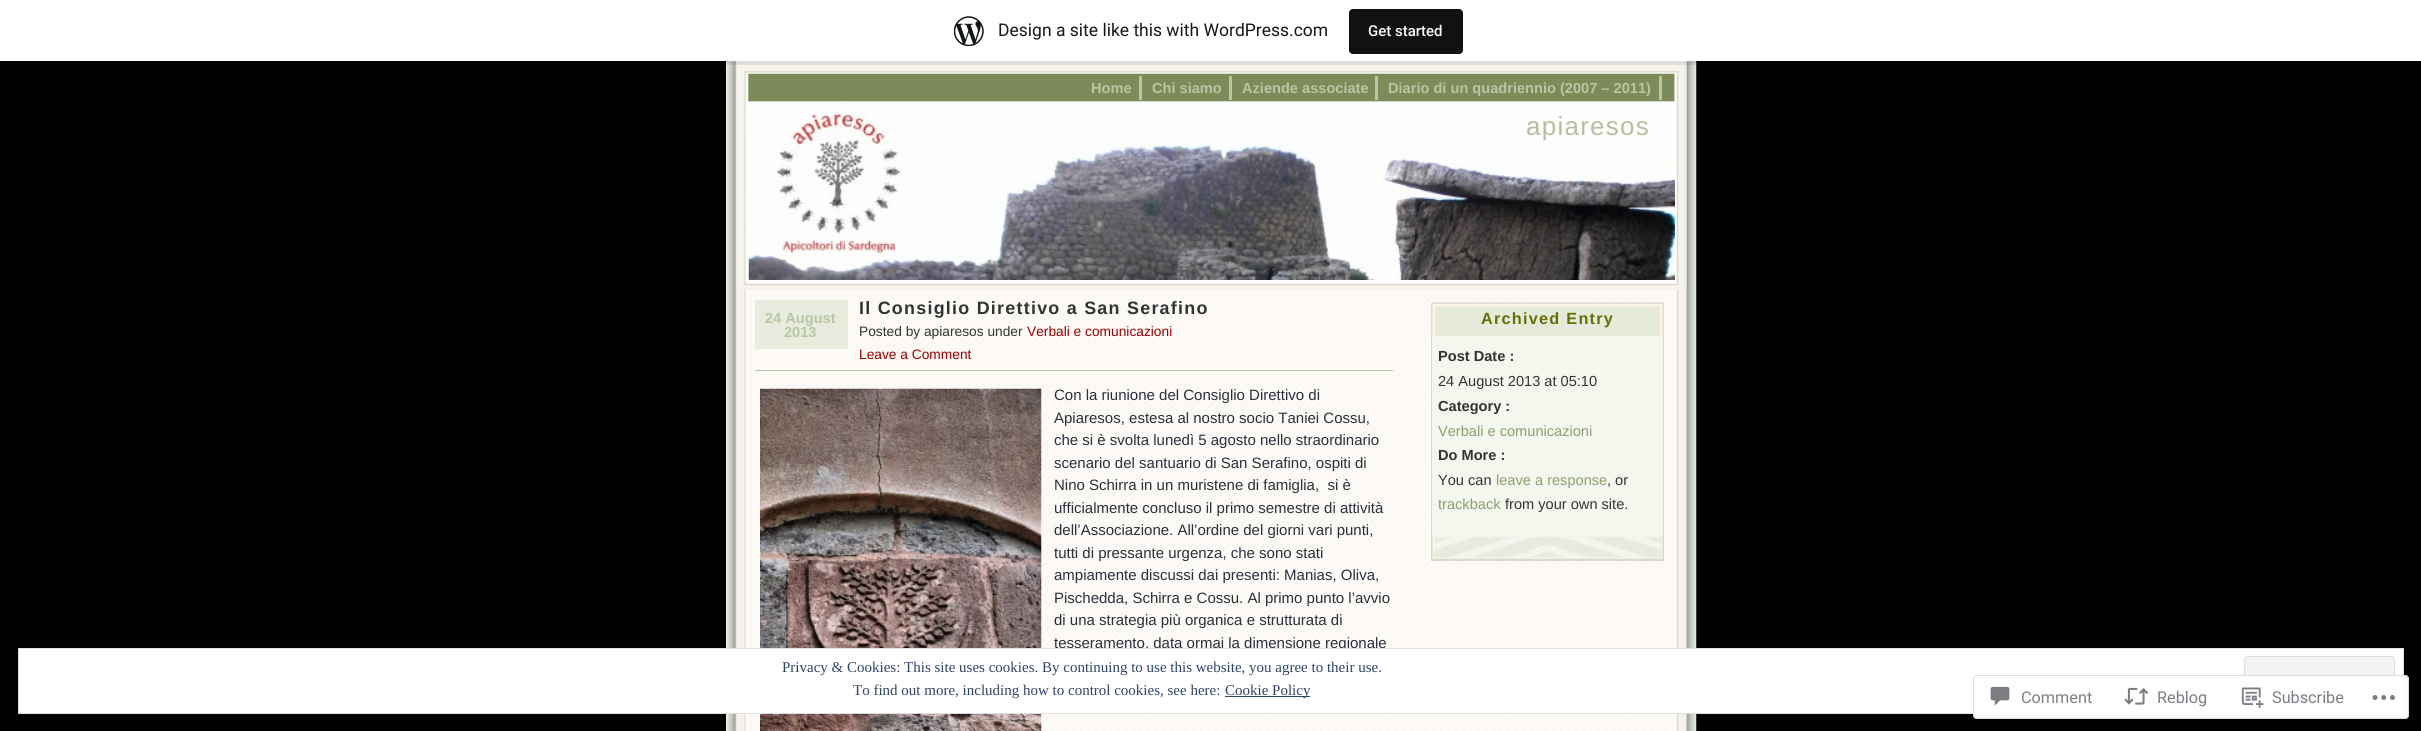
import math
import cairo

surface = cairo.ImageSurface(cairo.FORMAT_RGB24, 2421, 731)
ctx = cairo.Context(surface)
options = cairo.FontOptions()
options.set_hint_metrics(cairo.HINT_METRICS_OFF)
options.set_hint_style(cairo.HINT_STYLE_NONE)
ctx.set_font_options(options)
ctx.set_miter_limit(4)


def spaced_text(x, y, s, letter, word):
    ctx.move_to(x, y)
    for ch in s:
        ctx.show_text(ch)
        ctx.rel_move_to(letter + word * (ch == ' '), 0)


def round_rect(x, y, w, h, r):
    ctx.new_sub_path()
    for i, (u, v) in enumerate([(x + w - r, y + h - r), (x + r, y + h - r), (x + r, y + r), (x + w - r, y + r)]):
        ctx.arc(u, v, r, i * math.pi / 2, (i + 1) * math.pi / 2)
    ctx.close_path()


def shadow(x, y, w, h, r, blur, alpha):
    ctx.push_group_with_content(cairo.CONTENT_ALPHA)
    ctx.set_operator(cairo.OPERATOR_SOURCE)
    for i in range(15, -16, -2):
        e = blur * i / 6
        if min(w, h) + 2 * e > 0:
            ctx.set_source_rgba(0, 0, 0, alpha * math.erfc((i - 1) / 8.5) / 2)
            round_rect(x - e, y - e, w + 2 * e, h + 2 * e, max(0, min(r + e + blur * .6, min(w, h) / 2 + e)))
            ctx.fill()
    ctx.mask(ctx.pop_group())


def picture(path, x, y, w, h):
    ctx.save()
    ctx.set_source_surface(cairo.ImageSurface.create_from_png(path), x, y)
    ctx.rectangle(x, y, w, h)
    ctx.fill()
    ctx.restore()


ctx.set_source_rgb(0, 0, 0)
ctx.paint()
ctx.set_source_rgb(1, 1, 1)
ctx.rectangle(726, 61, 970, 670)
ctx.fill()
picture("img1.png", 726, 61, 971, 670)
picture("img2.png", 748, 290, 926, 441)
ctx.rectangle(736, 61, 950, 229)
ctx.fill()
picture("img11.png", 736, 61, 951, 229)
ctx.set_source_rgb(0, 0, 0)
shadow(0, 1, 2421, 62, 0, 1, 0.05)
ctx.set_source_rgba(0, 0, 0, 0.08)
ctx.new_path()
ctx.move_to(1, 61)
ctx.line_to(1, 65)
ctx.line_to(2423, 65)
ctx.line_to(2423, 4)
ctx.line_to(2421, 4)
ctx.line_to(2421, 61)
ctx.close_path()
ctx.fill()
ctx.set_source_rgb(1, 1, 1)
ctx.rectangle(0, 0, 2421, 61)
ctx.fill()
picture("img3.png", 954, 16, 30, 30)
ctx.select_font_face("Roboto")
ctx.set_font_size(17.5)
ctx.set_source_rgb(0.09, 0.09, 0.09)
ctx.move_to(998, 36)
ctx.show_text("Design a site like this with WordPress.com")
ctx.set_source_rgb(0.067, 0.067, 0.067)
round_rect(1349, 9, 114, 45, 4)
ctx.fill()
ctx.select_font_face("Roboto Medium")
ctx.set_font_size(15)
ctx.set_source_rgb(0.965, 0.969, 0.969)
ctx.move_to(1368, 36)
ctx.show_text("Get started")
ctx.set_source_rgb(0.906, 0.922, 0.871)
ctx.rectangle(755, 300, 93, 49)
ctx.fill()
ctx.select_font_face("Liberation Sans", cairo.FONT_SLANT_NORMAL, cairo.FONT_WEIGHT_BOLD)
ctx.set_font_size(14.6)
ctx.set_source_rgb(0.733, 0.769, 0.639)
ctx.move_to(765, 323)
ctx.show_text("24 August")
ctx.move_to(784, 337)
ctx.show_text("2013")
ctx.set_font_size(17.9)
ctx.set_source_rgb(0.2, 0.2, 0.2)
spaced_text(859, 314, "Il Consiglio Direttivo a San Serafino", 1.25, 0)
ctx.select_font_face("Liberation Sans")
ctx.set_font_size(13.75)
ctx.move_to(859, 336)
ctx.show_text("Posted by apiaresos under")
ctx.set_source_rgb(0.6, 0, 0)
ctx.move_to(1027, 336)
ctx.show_text("Verbali e comunicazioni")
ctx.move_to(859, 359)
ctx.show_text("Leave a Comment")
ctx.set_source_rgb(0.733, 0.769, 0.639)
ctx.rectangle(755, 370, 638, 1)
ctx.fill()
picture("img4.png", 760, 388, 282, 343)
ctx.set_font_size(15)
ctx.set_source_rgb(0.161, 0.188, 0.231)
ctx.move_to(1054, 400)
ctx.show_text("Con la riunione del Consiglio Direttivo di")
ctx.move_to(1054, 423)
ctx.show_text("Apiaresos, estesa al nostro socio Taniei Cossu,")
ctx.move_to(1054, 445)
ctx.show_text("che si è svolta lunedì 5 agosto nello straordinario")
ctx.move_to(1054, 468)
ctx.show_text("scenario del santuario di San Serafino, ospiti di")
ctx.move_to(1054, 490)
ctx.show_text("Nino Schirra in un muristene di famiglia,  si è")
ctx.move_to(1054, 513)
ctx.show_text("ufficialmente concluso il primo semestre di attività")
ctx.move_to(1054, 535)
ctx.show_text("dell’Associazione. All’ordine del giorni vari punti,")
ctx.move_to(1054, 558)
ctx.show_text("tutti di pressante urgenza, che sono stati")
ctx.move_to(1054, 580)
ctx.show_text("ampiamente discussi dai presenti: Manias, Oliva,")
ctx.move_to(1054, 603)
ctx.show_text("Pischedda, Schirra e Cossu. Al primo punto l’avvio")
ctx.move_to(1054, 625)
ctx.show_text("di una strategia più organica e strutturata di")
ctx.move_to(1054, 648)
ctx.show_text("tesseramento, data ormai la dimensione regionale")
picture("img5.png", 1431, 302, 233, 34)
ctx.select_font_face("Liberation Sans", cairo.FONT_SLANT_NORMAL, cairo.FONT_WEIGHT_BOLD)
ctx.set_font_size(16.25)
ctx.set_source_rgb(0.404, 0.431, 0.016)
spaced_text(1481, 324, "Archived Entry", 1.25, 0)
ctx.set_source_rgb(0.953, 0.965, 0.929)
ctx.rectangle(1432, 336, 231, 201)
ctx.fill()
picture("img6.png", 1432, 536, 231, 24)
ctx.set_source_rgb(0.882, 0.839, 0.776)
ctx.rectangle(1663, 336, 1, 225)
ctx.fill()
ctx.rectangle(1431, 560, 233, 1)
ctx.fill()
ctx.rectangle(1431, 336, 1, 225)
ctx.fill()
ctx.set_font_size(14.6)
ctx.set_source_rgb(0.2, 0.2, 0.2)
ctx.move_to(1438, 361)
ctx.show_text("Post Date :")
ctx.select_font_face("Liberation Sans")
ctx.move_to(1438, 386)
ctx.show_text("24 August 2013 at 05:10")
ctx.select_font_face("Liberation Sans", cairo.FONT_SLANT_NORMAL, cairo.FONT_WEIGHT_BOLD)
ctx.move_to(1438, 411)
ctx.show_text("Category :")
ctx.select_font_face("Liberation Sans")
ctx.set_source_rgb(0.565, 0.616, 0.451)
ctx.move_to(1438, 436)
ctx.show_text("Verbali e comunicazioni")
ctx.select_font_face("Liberation Sans", cairo.FONT_SLANT_NORMAL, cairo.FONT_WEIGHT_BOLD)
ctx.set_source_rgb(0.2, 0.2, 0.2)
ctx.move_to(1438, 460)
ctx.show_text("Do More :")
ctx.select_font_face("Liberation Sans")
ctx.move_to(1438, 485)
ctx.show_text("You can")
ctx.set_source_rgb(0.565, 0.616, 0.451)
ctx.move_to(1496, 485)
ctx.show_text("leave a response")
ctx.set_source_rgb(0.2, 0.2, 0.2)
ctx.move_to(1607, 485)
ctx.show_text(", or")
ctx.set_source_rgb(0.565, 0.616, 0.451)
ctx.move_to(1438, 509)
ctx.show_text("trackback")
ctx.set_source_rgb(0.2, 0.2, 0.2)
ctx.move_to(1505, 509)
ctx.show_text("from your own site.")
ctx.set_source_rgb(1, 1, 1)
ctx.rectangle(18.5, 648.5, 2385, 65)
ctx.fill_preserve()
ctx.set_source_rgb(0.871, 0.871, 0.871)
ctx.set_line_width(1)
ctx.stroke()
ctx.set_source_rgb(0.953, 0.953, 0.953)
round_rect(2244.5, 656.5, 150, 48, 3.5)
ctx.fill_preserve()
ctx.set_source_rgb(0.871, 0.871, 0.871)
ctx.stroke()
ctx.set_source_rgba(1, 1, 1, 0.98)
round_rect(1973, 675, 436, 44, 4)
ctx.fill()
round_rect(1973.5, 675.5, 435, 43, 3.5)
ctx.set_source_rgba(0.863, 0.863, 0.871, 0.98)
ctx.stroke()
picture("img7.png", 1990, 686, 20, 20)
ctx.select_font_face("Roboto")
ctx.set_font_size(16.25)
ctx.set_source_rgb(0.482, 0.498, 0.522)
ctx.move_to(2021, 703)
ctx.show_text("Comment")
picture("img8.png", 2124, 687, 25, 18)
ctx.move_to(2157, 703)
ctx.show_text("Reblog")
picture("img9.png", 2241, 687, 23, 21)
ctx.move_to(2272, 703)
ctx.show_text("Subscribe")
picture("img10.png", 2372, 695, 23, 5)
ctx.set_source_rgb(0.733, 0.769, 0.639)
ctx.rectangle(1139, 76, 3, 24)
ctx.fill()
ctx.select_font_face("Liberation Sans", cairo.FONT_SLANT_NORMAL, cairo.FONT_WEIGHT_BOLD)
ctx.set_font_size(14.6)
ctx.move_to(1091, 93)
ctx.show_text("Home")
ctx.rectangle(1229, 76, 3, 24)
ctx.fill()
ctx.move_to(1152, 93)
ctx.show_text("Chi siamo")
ctx.rectangle(1375, 76, 3, 24)
ctx.fill()
ctx.move_to(1242, 93)
ctx.show_text("Aziende associate")
ctx.rectangle(1659, 76, 3, 24)
ctx.fill()
ctx.move_to(1388, 93)
ctx.show_text("Diario di un quadriennio (2007 – 2011)")
picture("img12.png", 748, 102, 927, 178)
ctx.select_font_face("Liberation Sans")
ctx.set_font_size(26)
ctx.set_source_rgb(0.71, 0.753, 0.616)
spaced_text(1526, 135, "apiaresos", 1.25, 0)
ctx.select_font_face("Liberation Serif")
ctx.set_font_size(15)
ctx.set_source_rgb(0.18, 0.267, 0.404)
ctx.move_to(782, 672)
ctx.show_text("Privacy & Cookies: This site uses cookies. By continuing to use this website, you agree to their use.")
ctx.move_to(853, 695)
ctx.show_text("To find out more, including how to control cookies, see here:")
ctx.rectangle(1225, 696, 85, 1)
ctx.fill()
ctx.move_to(1225, 695)
ctx.show_text("Cookie Policy")
surface.write_to_png("page.png")
